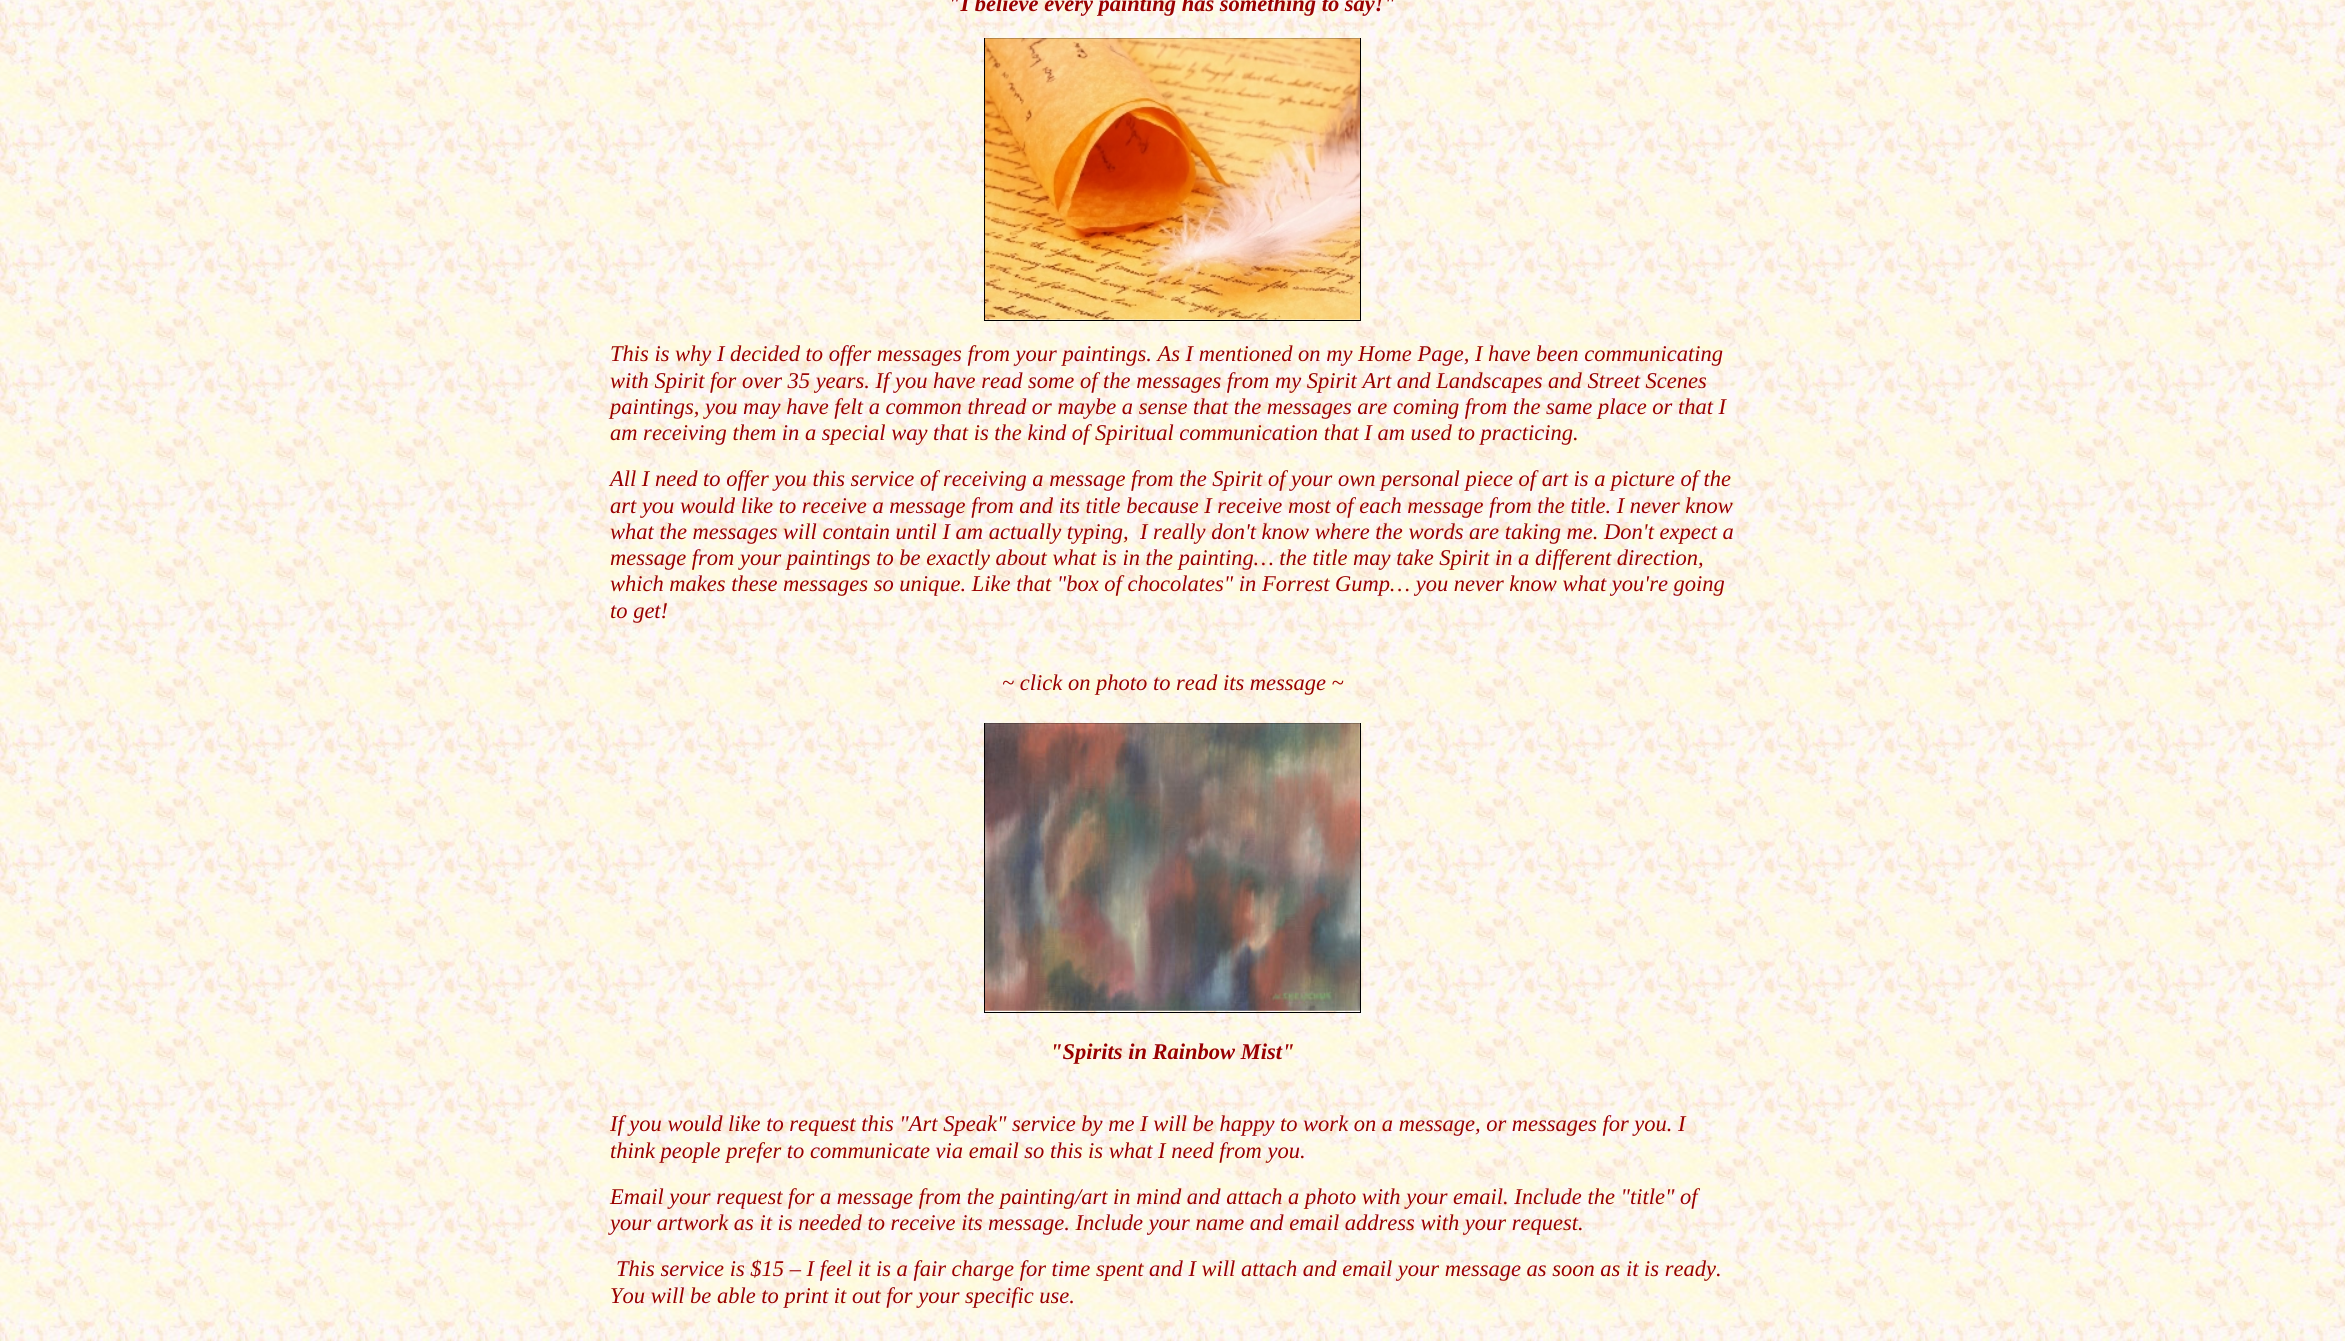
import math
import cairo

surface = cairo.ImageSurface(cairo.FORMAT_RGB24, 2345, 1341)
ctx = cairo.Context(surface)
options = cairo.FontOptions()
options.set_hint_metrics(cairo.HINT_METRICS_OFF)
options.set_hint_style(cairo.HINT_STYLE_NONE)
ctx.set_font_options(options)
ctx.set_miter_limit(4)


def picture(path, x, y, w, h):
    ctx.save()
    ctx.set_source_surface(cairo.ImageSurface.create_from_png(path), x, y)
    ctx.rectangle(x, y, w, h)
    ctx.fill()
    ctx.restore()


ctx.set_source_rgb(1, 1, 1)
ctx.paint()
picture("img1.png", 0, 0, 2345, 1341)
ctx.select_font_face("Liberation Serif", cairo.FONT_SLANT_ITALIC, cairo.FONT_WEIGHT_BOLD)
ctx.set_font_size(22.5)
ctx.set_source_rgb(0.6, 0, 0)
ctx.move_to(948, 11)
ctx.show_text("\"I believe every painting has something to say!\"")
ctx.rectangle(984.5, 38.5, 376, 282)
ctx.set_source_rgb(0, 0, 0)
ctx.set_line_width(1)
ctx.stroke()
picture("img2.png", 985, 38, 375, 282)
ctx.select_font_face("Liberation Serif", cairo.FONT_SLANT_ITALIC)
ctx.set_source_rgb(0.6, 0, 0)
ctx.move_to(610, 361)
ctx.show_text("This is why I decided to offer messages from your paintings. As I mentioned on my Home Page, I have been communicating")
ctx.move_to(610, 388)
ctx.show_text("with Spirit for over 35 years. If you have read some of the messages from my Spirit Art and Landscapes and Street Scenes")
ctx.move_to(610, 414)
ctx.show_text("paintings, you may have felt a common thread or maybe a sense that the messages are coming from the same place or that I")
ctx.move_to(610, 440)
ctx.show_text("am receiving them in a special way that is the kind of Spiritual communication that I am used to practicing.")
ctx.move_to(610, 486)
ctx.show_text("All I need to offer you this service of receiving a message from the Spirit of your own personal piece of art is a picture of the")
ctx.move_to(610, 513)
ctx.show_text("art you would like to receive a message from and its title because I receive most of each message from the title. I never know")
ctx.move_to(610, 539)
ctx.show_text("what the messages will contain until I am actually typing,  I really don't know where the words are taking me. Don't expect a")
ctx.move_to(610, 565)
ctx.show_text("message from your paintings to be exactly about what is in the painting… the title may take Spirit in a different direction,")
ctx.move_to(610, 591)
ctx.show_text("which makes these messages so unique. Like that \"box of chocolates\" in Forrest Gump… you never know what you're going")
ctx.move_to(610, 618)
ctx.show_text("to get!")
ctx.move_to(1002, 690)
ctx.show_text("~ click on photo to read its message ~")
ctx.rectangle(984.5, 723.5, 376, 289)
ctx.set_source_rgb(0, 0, 0)
ctx.stroke()
picture("img3.png", 985, 723, 375, 288)
ctx.select_font_face("Liberation Serif", cairo.FONT_SLANT_ITALIC, cairo.FONT_WEIGHT_BOLD)
ctx.set_source_rgb(0.6, 0, 0)
ctx.move_to(1050, 1059)
ctx.show_text("\"Spirits in Rainbow Mist\"")
ctx.select_font_face("Liberation Serif", cairo.FONT_SLANT_ITALIC)
ctx.move_to(610, 1131)
ctx.show_text("If you would like to request this \"Art Speak\" service by me I will be happy to work on a message, or messages for you. I")
ctx.move_to(610, 1158)
ctx.show_text("think people prefer to communicate via email so this is what I need from you.")
ctx.move_to(610, 1204)
ctx.show_text("Email your request for a message from the painting/art in mind and attach a photo with your email. Include the \"title\" of")
ctx.move_to(610, 1230)
ctx.show_text("your artwork as it is needed to receive its message. Include your name and email address with your request.")
ctx.move_to(616, 1276)
ctx.show_text("This service is $15 – I feel it is a fair charge for time spent and I will attach and email your message as soon as it is ready.")
ctx.move_to(610, 1303)
ctx.show_text("You will be able to print it out for your specific use.")
surface.write_to_png("page.png")
